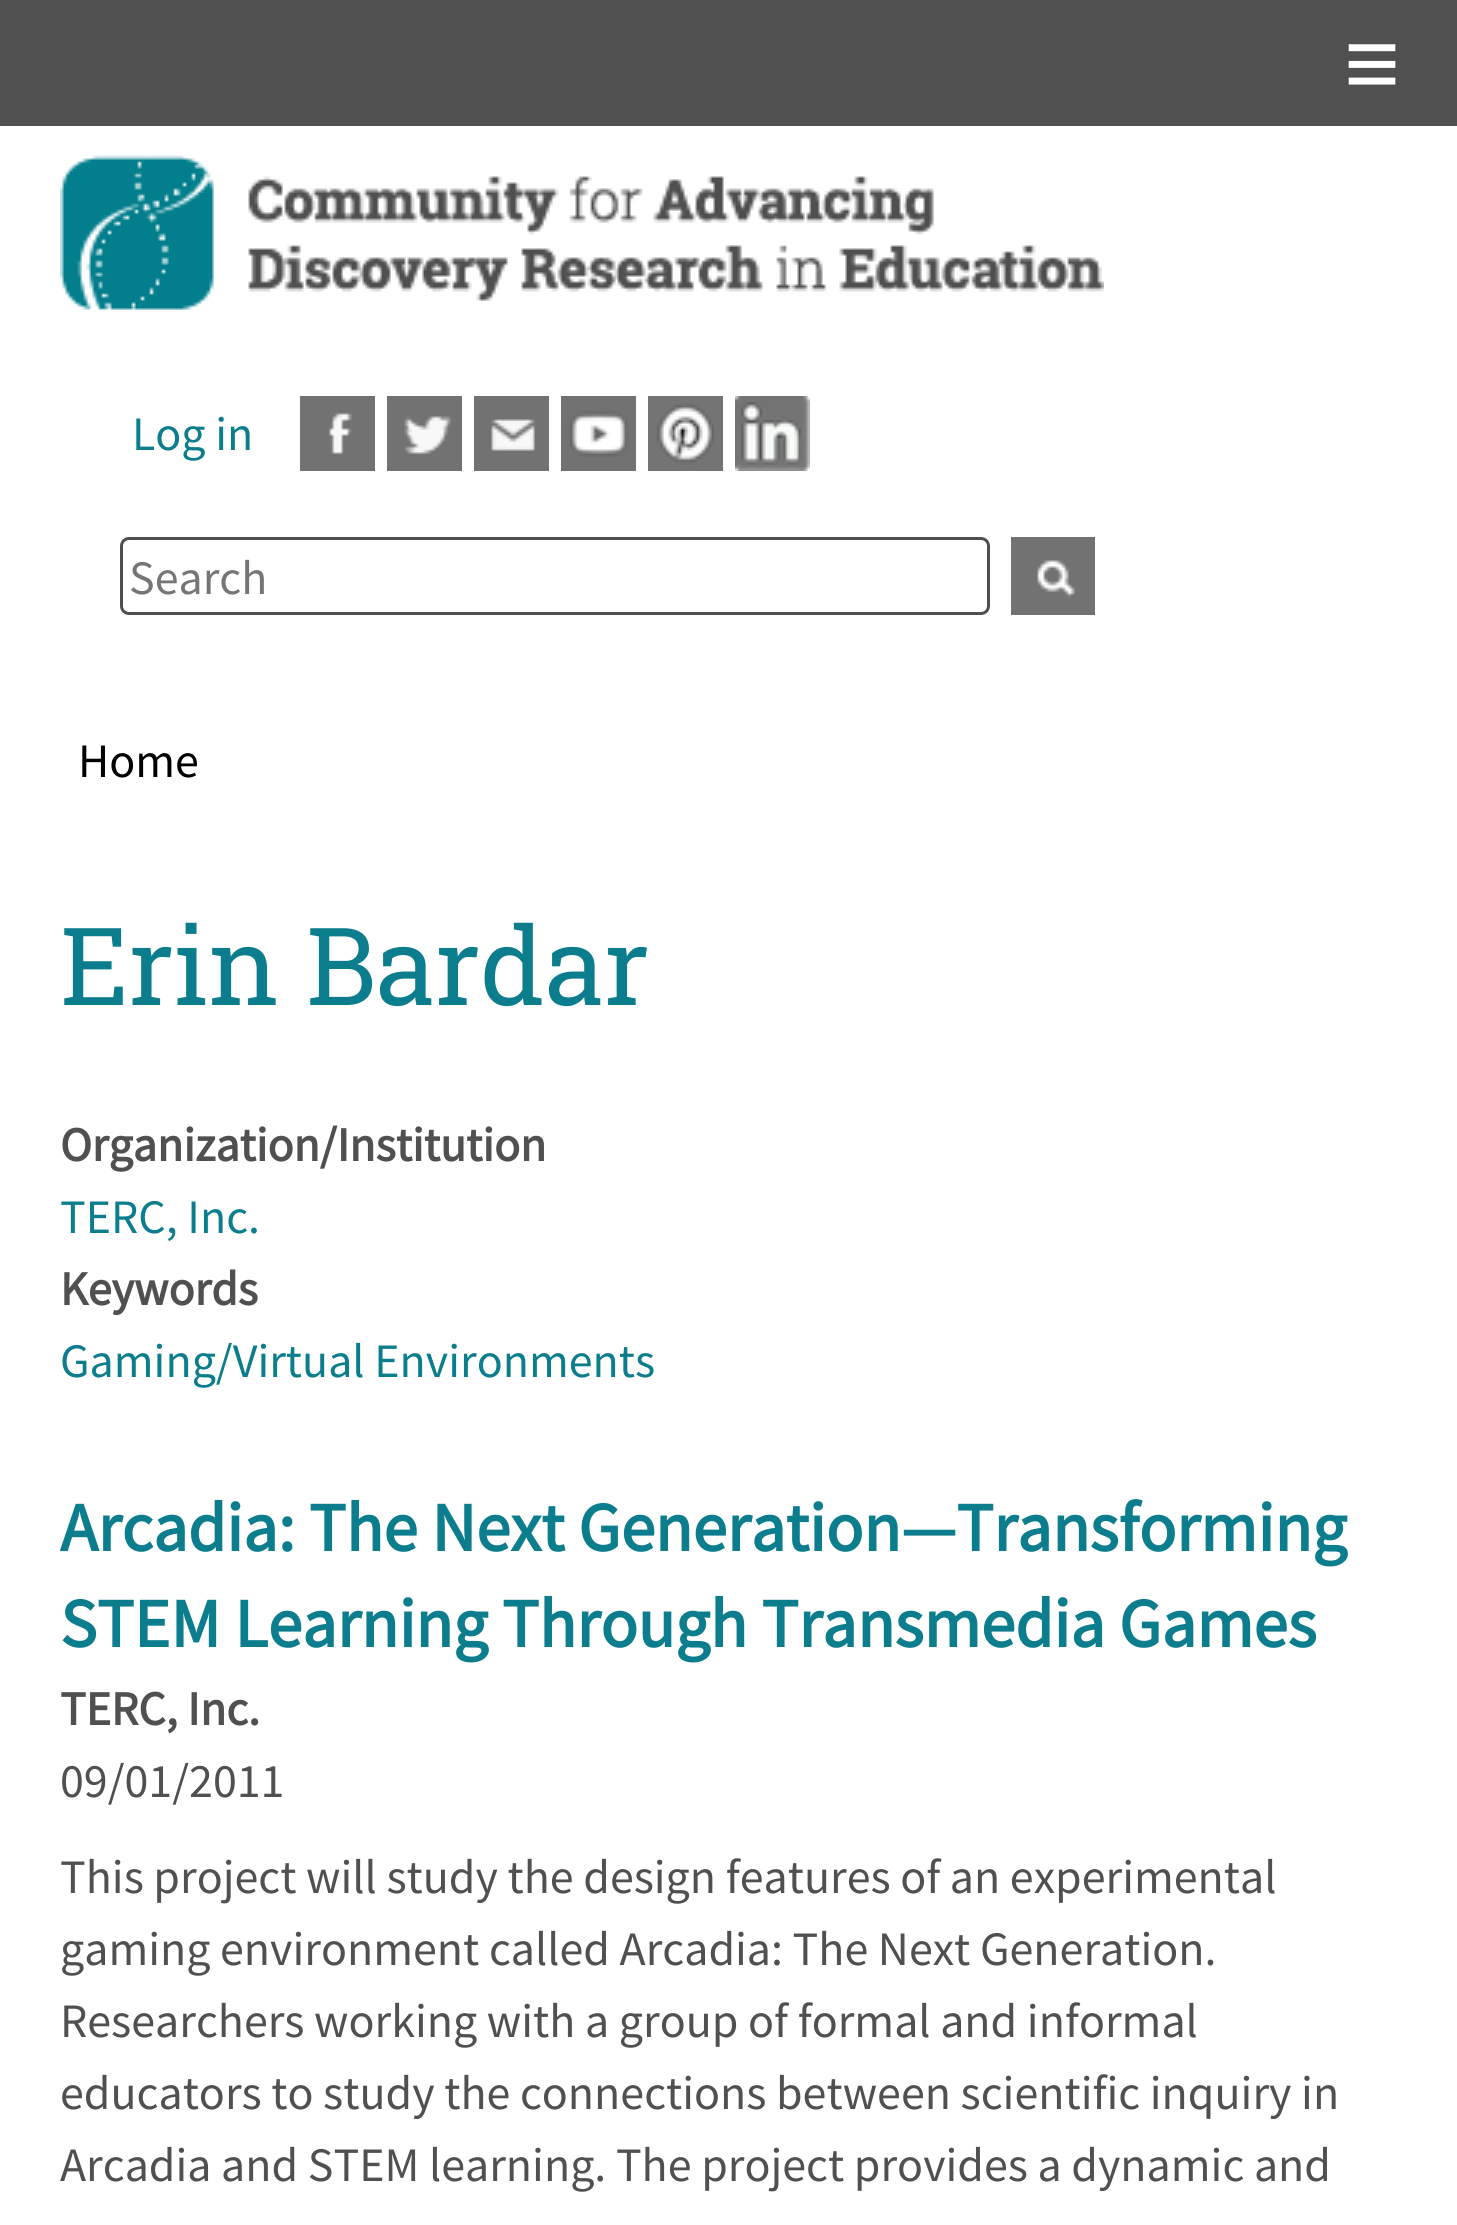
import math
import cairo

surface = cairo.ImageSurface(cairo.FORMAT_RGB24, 1457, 2225)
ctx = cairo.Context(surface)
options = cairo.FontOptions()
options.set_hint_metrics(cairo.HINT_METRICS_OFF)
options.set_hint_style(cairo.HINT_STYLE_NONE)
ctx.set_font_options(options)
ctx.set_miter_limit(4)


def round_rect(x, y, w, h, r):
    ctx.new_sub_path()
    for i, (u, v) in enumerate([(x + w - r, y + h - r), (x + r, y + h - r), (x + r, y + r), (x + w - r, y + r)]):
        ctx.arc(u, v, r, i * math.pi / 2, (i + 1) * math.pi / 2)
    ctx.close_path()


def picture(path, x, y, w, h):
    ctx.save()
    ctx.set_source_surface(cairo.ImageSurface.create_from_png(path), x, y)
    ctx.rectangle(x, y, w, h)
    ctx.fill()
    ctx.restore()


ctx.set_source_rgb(1, 1, 1)
ctx.paint()
ctx.set_source_rgb(0.314, 0.314, 0.314)
ctx.rectangle(0, 0, 1457, 126)
ctx.fill()
ctx.select_font_face("Liberation Sans")
ctx.set_font_size(96)
ctx.set_source_rgb(1, 1, 1)
ctx.move_to(1344, 96)
ctx.show_text("≡")
round_rect(121.5, 538.5, 867, 75, 7.5)
ctx.set_source_rgb(0.31, 0.31, 0.31)
ctx.set_line_width(3)
ctx.stroke()
ctx.select_font_face("Source Sans Pro")
ctx.set_font_size(48)
ctx.set_source_rgb(0.459, 0.459, 0.459)
ctx.move_to(129, 594)
ctx.show_text("Search")
picture("img1.png", 1011, 537, 84, 78)
picture("img2.png", 60, 155, 1044, 155)
ctx.set_source_rgb(0.043, 0.49, 0.549)
ctx.move_to(132, 450)
ctx.show_text("Log in")
picture("img3.png", 300, 396, 75, 75)
picture("img4.png", 387, 396, 75, 75)
picture("img5.png", 474, 396, 75, 75)
picture("img6.png", 561, 396, 75, 75)
picture("img7.png", 648, 396, 75, 75)
picture("img8.png", 735, 396, 75, 75)
ctx.set_source_rgb(0, 0, 0)
ctx.move_to(78, 777)
ctx.show_text("Home")
ctx.select_font_face("Roboto Slab")
ctx.set_font_size(108)
ctx.set_source_rgb(0.043, 0.49, 0.549)
ctx.move_to(60, 1005)
ctx.show_text("Erin Bardar")
ctx.select_font_face("Source Sans Pro", cairo.FONT_SLANT_NORMAL, cairo.FONT_WEIGHT_BOLD)
ctx.set_font_size(48)
ctx.set_source_rgb(0.314, 0.314, 0.314)
ctx.move_to(60, 1161)
ctx.show_text("Organization/Institution")
ctx.select_font_face("Source Sans Pro")
ctx.set_source_rgb(0.043, 0.49, 0.549)
ctx.move_to(60, 1233)
ctx.show_text("TERC, Inc.")
ctx.select_font_face("Source Sans Pro", cairo.FONT_SLANT_NORMAL, cairo.FONT_WEIGHT_BOLD)
ctx.set_source_rgb(0.314, 0.314, 0.314)
ctx.move_to(60, 1305)
ctx.show_text("Keywords")
ctx.select_font_face("Source Sans Pro")
ctx.set_source_rgb(0.043, 0.49, 0.549)
ctx.move_to(60, 1377)
ctx.show_text("Gaming/Virtual Environments")
ctx.select_font_face("Source Sans Pro", cairo.FONT_SLANT_NORMAL, cairo.FONT_WEIGHT_BOLD)
ctx.set_font_size(69)
ctx.move_to(60, 1551)
ctx.show_text("Arcadia: The Next Generation—Transforming")
ctx.move_to(60, 1647)
ctx.show_text("STEM Learning Through Transmedia Games")
ctx.set_font_size(48)
ctx.set_source_rgb(0.314, 0.314, 0.314)
ctx.move_to(60, 1725)
ctx.show_text("TERC, Inc.")
ctx.select_font_face("Source Sans Pro")
ctx.move_to(60, 1797)
ctx.show_text("09/01/2011")
ctx.move_to(60, 1893)
ctx.show_text("This project will study the design features of an experimental")
ctx.move_to(60, 1965)
ctx.show_text("gaming environment called Arcadia: The Next Generation.")
ctx.move_to(60, 2037)
ctx.show_text("Researchers working with a group of formal and informal")
ctx.move_to(60, 2109)
ctx.show_text("educators to study the connections between scientific inquiry in")
ctx.move_to(60, 2181)
ctx.show_text("Arcadia and STEM learning. The project provides a dynamic and")
surface.write_to_png("page.png")
